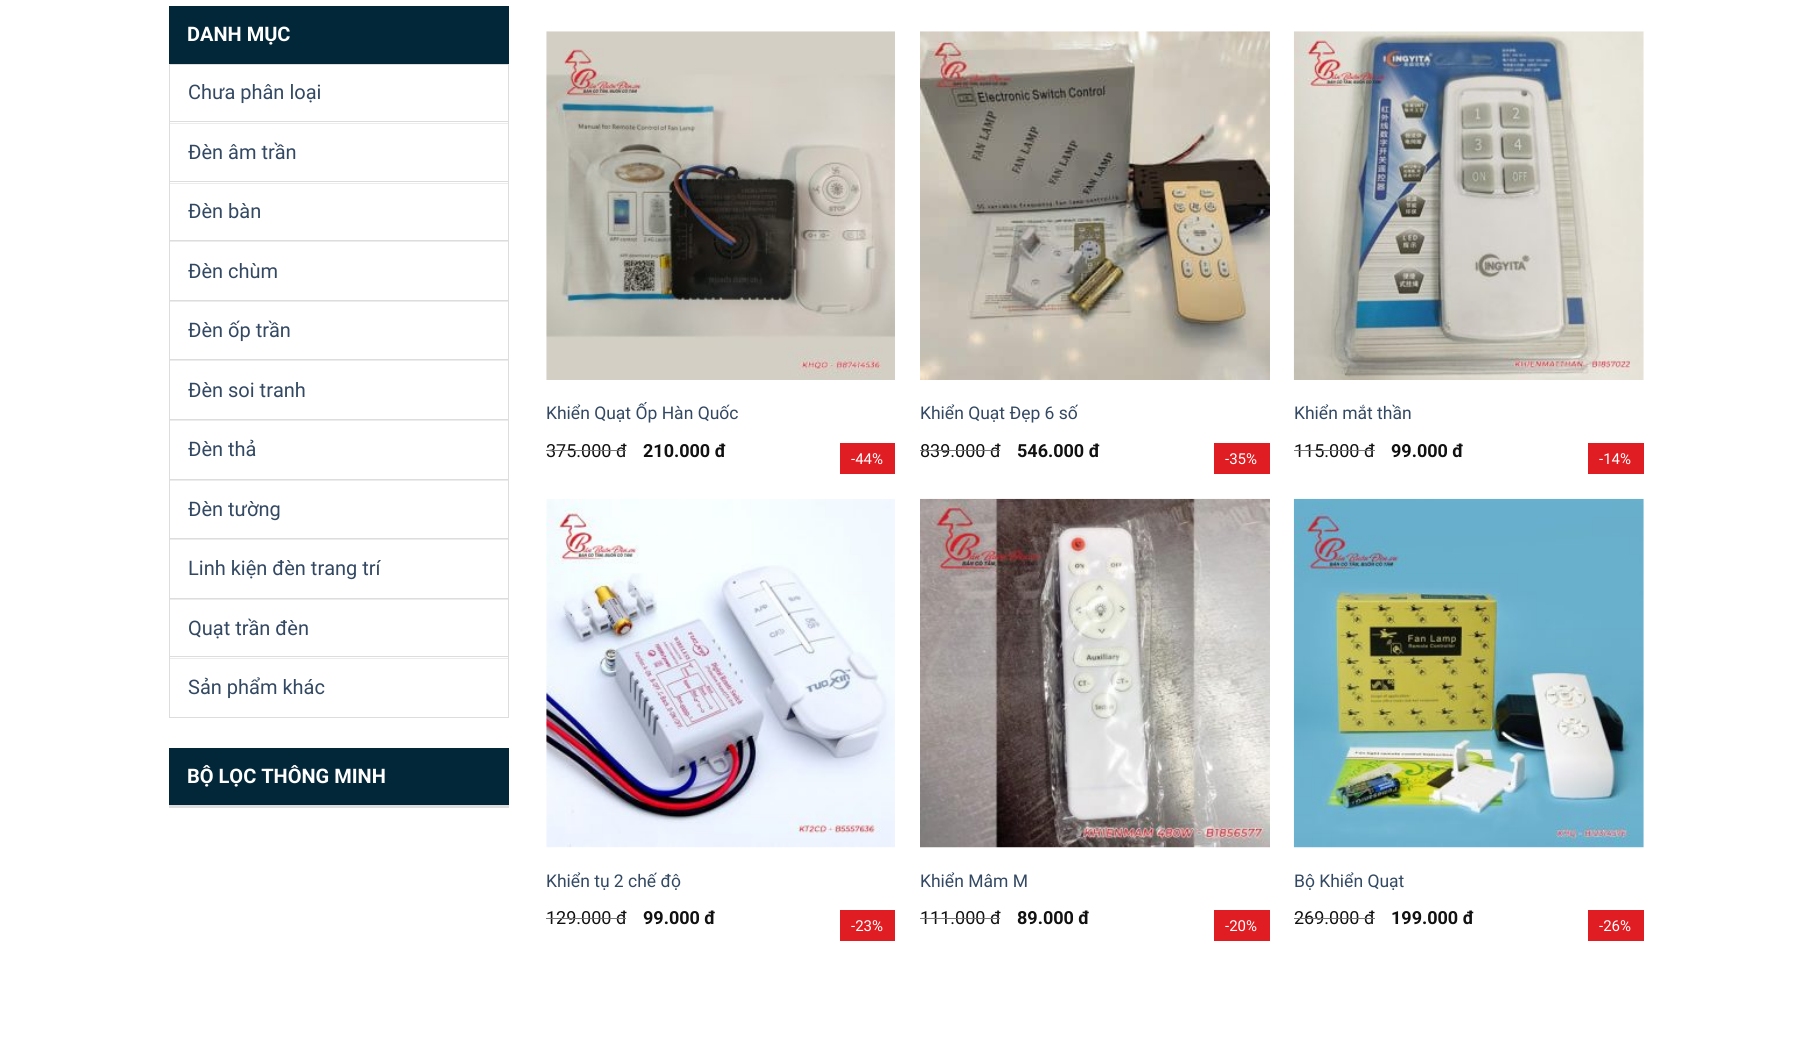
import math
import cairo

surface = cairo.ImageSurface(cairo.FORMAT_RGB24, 1811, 1041)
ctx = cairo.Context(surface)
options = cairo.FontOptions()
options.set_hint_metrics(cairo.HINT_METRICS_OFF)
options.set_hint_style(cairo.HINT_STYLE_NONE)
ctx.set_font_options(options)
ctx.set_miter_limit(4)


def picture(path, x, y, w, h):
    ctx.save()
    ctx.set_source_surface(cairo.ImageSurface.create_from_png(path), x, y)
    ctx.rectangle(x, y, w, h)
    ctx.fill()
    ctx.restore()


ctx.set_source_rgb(1, 1, 1)
ctx.paint()
ctx.set_source_rgb(0.008, 0.153, 0.224)
ctx.rectangle(169, 6, 340, 58)
ctx.fill()
ctx.select_font_face("Roboto", cairo.FONT_SLANT_NORMAL, cairo.FONT_WEIGHT_BOLD)
ctx.set_font_size(20)
ctx.set_source_rgb(1, 1, 1)
ctx.move_to(187, 41)
ctx.show_text("DANH MỤC")
ctx.rectangle(169.5, 64.5, 339, 653)
ctx.set_source_rgb(0.867, 0.867, 0.867)
ctx.set_line_width(1)
ctx.stroke()
ctx.rectangle(170, 121, 338, 1)
ctx.fill()
ctx.select_font_face("Roboto")
ctx.set_source_rgb(0.2, 0.282, 0.384)
ctx.move_to(188, 99)
ctx.show_text("Chưa phân loại")
ctx.set_source_rgb(0.925, 0.925, 0.925)
ctx.rectangle(170, 123, 338, 1)
ctx.fill()
ctx.set_source_rgb(0.867, 0.867, 0.867)
ctx.rectangle(170, 181, 338, 1)
ctx.fill()
ctx.set_source_rgb(0.2, 0.282, 0.384)
ctx.move_to(188, 159)
ctx.show_text("Đèn âm trần")
ctx.set_source_rgb(0.925, 0.925, 0.925)
ctx.rectangle(170, 183, 338, 1)
ctx.fill()
ctx.set_source_rgb(0.867, 0.867, 0.867)
ctx.rectangle(170, 240, 338, 1)
ctx.fill()
ctx.set_source_rgb(0.2, 0.282, 0.384)
ctx.move_to(188, 218)
ctx.show_text("Đèn bàn")
ctx.set_source_rgb(0.925, 0.925, 0.925)
ctx.rectangle(170, 241, 338, 1)
ctx.fill()
ctx.set_source_rgb(0.867, 0.867, 0.867)
ctx.rectangle(170, 300, 338, 1)
ctx.fill()
ctx.set_source_rgb(0.2, 0.282, 0.384)
ctx.move_to(188, 278)
ctx.show_text("Đèn chùm")
ctx.set_source_rgb(0.925, 0.925, 0.925)
ctx.rectangle(170, 301, 338, 1)
ctx.fill()
ctx.set_source_rgb(0.867, 0.867, 0.867)
ctx.rectangle(170, 359, 338, 1)
ctx.fill()
ctx.set_source_rgb(0.2, 0.282, 0.384)
ctx.move_to(188, 337)
ctx.show_text("Đèn ốp trần")
ctx.set_source_rgb(0.925, 0.925, 0.925)
ctx.rectangle(170, 360, 338, 1)
ctx.fill()
ctx.set_source_rgb(0.867, 0.867, 0.867)
ctx.rectangle(170, 419, 338, 1)
ctx.fill()
ctx.set_source_rgb(0.2, 0.282, 0.384)
ctx.move_to(188, 397)
ctx.show_text("Đèn soi tranh")
ctx.set_source_rgb(0.925, 0.925, 0.925)
ctx.rectangle(170, 420, 338, 1)
ctx.fill()
ctx.set_source_rgb(0.867, 0.867, 0.867)
ctx.rectangle(170, 479, 338, 1)
ctx.fill()
ctx.set_source_rgb(0.2, 0.282, 0.384)
ctx.move_to(188, 456)
ctx.show_text("Đèn thả")
ctx.set_source_rgb(0.925, 0.925, 0.925)
ctx.rectangle(170, 480, 338, 1)
ctx.fill()
ctx.set_source_rgb(0.867, 0.867, 0.867)
ctx.rectangle(170, 538, 338, 1)
ctx.fill()
ctx.set_source_rgb(0.2, 0.282, 0.384)
ctx.move_to(188, 516)
ctx.show_text("Đèn tường")
ctx.set_source_rgb(0.925, 0.925, 0.925)
ctx.rectangle(170, 539, 338, 1)
ctx.fill()
ctx.set_source_rgb(0.867, 0.867, 0.867)
ctx.rectangle(170, 598, 338, 1)
ctx.fill()
ctx.set_source_rgb(0.2, 0.282, 0.384)
ctx.move_to(188, 575)
ctx.show_text("Linh kiện đèn trang trí")
ctx.set_source_rgb(0.925, 0.925, 0.925)
ctx.rectangle(170, 599, 338, 1)
ctx.fill()
ctx.set_source_rgb(0.867, 0.867, 0.867)
ctx.rectangle(170, 656, 338, 1)
ctx.fill()
ctx.set_source_rgb(0.2, 0.282, 0.384)
ctx.move_to(188, 635)
ctx.show_text("Quạt trần đèn")
ctx.set_source_rgb(0.925, 0.925, 0.925)
ctx.rectangle(170, 658, 338, 1)
ctx.fill()
ctx.set_source_rgb(0.2, 0.282, 0.384)
ctx.move_to(188, 694)
ctx.show_text("Sản phẩm khác")
ctx.set_source_rgb(0.008, 0.153, 0.224)
ctx.rectangle(169, 748, 340, 57)
ctx.fill()
ctx.select_font_face("Roboto", cairo.FONT_SLANT_NORMAL, cairo.FONT_WEIGHT_BOLD)
ctx.set_source_rgb(1, 1, 1)
ctx.move_to(187, 783)
ctx.show_text("BỘ LỌC THÔNG MINH")
ctx.set_source_rgb(0.867, 0.867, 0.867)
ctx.rectangle(169, 805, 340, 3)
ctx.fill()
picture("img1.png", 546, 31, 349, 349)
ctx.select_font_face("Roboto")
ctx.set_font_size(17.5)
ctx.set_source_rgb(0.2, 0.282, 0.384)
ctx.move_to(546, 419)
ctx.show_text("Khiển Quạt Ốp Hàn Quốc")
ctx.set_font_size(18)
ctx.set_source_rgb(0.067, 0.067, 0.067)
ctx.move_to(546, 457)
ctx.show_text("375.000 đ")
ctx.set_source_rgb(0.467, 0.467, 0.467)
ctx.rectangle(546, 450, 80, 1)
ctx.fill()
ctx.select_font_face("Roboto", cairo.FONT_SLANT_NORMAL, cairo.FONT_WEIGHT_BOLD)
ctx.set_source_rgb(0.067, 0.067, 0.067)
ctx.move_to(643, 457)
ctx.show_text("210.000 đ")
ctx.set_source_rgb(0.878, 0.114, 0.137)
ctx.rectangle(840, 443, 55, 31)
ctx.fill()
ctx.select_font_face("Roboto")
ctx.set_font_size(15)
ctx.set_source_rgb(1, 1, 1)
ctx.move_to(851, 464)
ctx.show_text("-44%")
picture("img2.png", 920, 31, 350, 349)
ctx.set_font_size(17.5)
ctx.set_source_rgb(0.2, 0.282, 0.384)
ctx.move_to(920, 419)
ctx.show_text("Khiển Quạt Đẹp 6 số")
ctx.set_font_size(18)
ctx.set_source_rgb(0.067, 0.067, 0.067)
ctx.move_to(920, 457)
ctx.show_text("839.000 đ")
ctx.set_source_rgb(0.467, 0.467, 0.467)
ctx.rectangle(920, 450, 80, 1)
ctx.fill()
ctx.select_font_face("Roboto", cairo.FONT_SLANT_NORMAL, cairo.FONT_WEIGHT_BOLD)
ctx.set_source_rgb(0.067, 0.067, 0.067)
ctx.move_to(1017, 457)
ctx.show_text("546.000 đ")
ctx.set_source_rgb(0.878, 0.114, 0.137)
ctx.rectangle(1214, 443, 56, 31)
ctx.fill()
ctx.select_font_face("Roboto")
ctx.set_font_size(15)
ctx.set_source_rgb(1, 1, 1)
ctx.move_to(1225, 464)
ctx.show_text("-35%")
picture("img3.png", 1293, 31, 351, 349)
ctx.set_font_size(17.5)
ctx.set_source_rgb(0.2, 0.282, 0.384)
ctx.move_to(1294, 419)
ctx.show_text("Khiển mắt thần")
ctx.set_font_size(18)
ctx.set_source_rgb(0.067, 0.067, 0.067)
ctx.move_to(1294, 457)
ctx.show_text("115.000 đ")
ctx.set_source_rgb(0.467, 0.467, 0.467)
ctx.rectangle(1294, 450, 81, 1)
ctx.fill()
ctx.select_font_face("Roboto", cairo.FONT_SLANT_NORMAL, cairo.FONT_WEIGHT_BOLD)
ctx.set_source_rgb(0.067, 0.067, 0.067)
ctx.move_to(1391, 457)
ctx.show_text("99.000 đ")
ctx.set_source_rgb(0.878, 0.114, 0.137)
ctx.rectangle(1588, 443, 56, 31)
ctx.fill()
ctx.select_font_face("Roboto")
ctx.set_font_size(15)
ctx.set_source_rgb(1, 1, 1)
ctx.move_to(1599, 464)
ctx.show_text("-14%")
picture("img4.png", 546, 499, 349, 349)
ctx.set_font_size(17.5)
ctx.set_source_rgb(0.2, 0.282, 0.384)
ctx.move_to(546, 887)
ctx.show_text("Khiển tụ 2 chế độ")
ctx.set_font_size(18)
ctx.set_source_rgb(0.067, 0.067, 0.067)
ctx.move_to(546, 924)
ctx.show_text("129.000 đ")
ctx.set_source_rgb(0.467, 0.467, 0.467)
ctx.rectangle(546, 918, 80, 1)
ctx.fill()
ctx.select_font_face("Roboto", cairo.FONT_SLANT_NORMAL, cairo.FONT_WEIGHT_BOLD)
ctx.set_source_rgb(0.067, 0.067, 0.067)
ctx.move_to(643, 924)
ctx.show_text("99.000 đ")
ctx.set_source_rgb(0.878, 0.114, 0.137)
ctx.rectangle(840, 910, 55, 31)
ctx.fill()
ctx.select_font_face("Roboto")
ctx.set_font_size(15)
ctx.set_source_rgb(1, 1, 1)
ctx.move_to(851, 931)
ctx.show_text("-23%")
picture("img5.png", 920, 498, 350, 350)
ctx.set_font_size(17.5)
ctx.set_source_rgb(0.2, 0.282, 0.384)
ctx.move_to(920, 887)
ctx.show_text("Khiển Mâm M")
ctx.set_font_size(18)
ctx.set_source_rgb(0.067, 0.067, 0.067)
ctx.move_to(920, 924)
ctx.show_text("111.000 đ")
ctx.set_source_rgb(0.467, 0.467, 0.467)
ctx.rectangle(920, 918, 80, 1)
ctx.fill()
ctx.select_font_face("Roboto", cairo.FONT_SLANT_NORMAL, cairo.FONT_WEIGHT_BOLD)
ctx.set_source_rgb(0.067, 0.067, 0.067)
ctx.move_to(1017, 924)
ctx.show_text("89.000 đ")
ctx.set_source_rgb(0.878, 0.114, 0.137)
ctx.rectangle(1214, 910, 56, 31)
ctx.fill()
ctx.select_font_face("Roboto")
ctx.set_font_size(15)
ctx.set_source_rgb(1, 1, 1)
ctx.move_to(1225, 931)
ctx.show_text("-20%")
picture("img6.png", 1293, 498, 351, 350)
ctx.set_font_size(17.5)
ctx.set_source_rgb(0.2, 0.282, 0.384)
ctx.move_to(1294, 887)
ctx.show_text("Bộ Khiển Quạt")
ctx.set_font_size(18)
ctx.set_source_rgb(0.067, 0.067, 0.067)
ctx.move_to(1294, 924)
ctx.show_text("269.000 đ")
ctx.set_source_rgb(0.467, 0.467, 0.467)
ctx.rectangle(1294, 918, 81, 1)
ctx.fill()
ctx.select_font_face("Roboto", cairo.FONT_SLANT_NORMAL, cairo.FONT_WEIGHT_BOLD)
ctx.set_source_rgb(0.067, 0.067, 0.067)
ctx.move_to(1391, 924)
ctx.show_text("199.000 đ")
ctx.set_source_rgb(0.878, 0.114, 0.137)
ctx.rectangle(1588, 910, 56, 31)
ctx.fill()
ctx.select_font_face("Roboto")
ctx.set_font_size(15)
ctx.set_source_rgb(1, 1, 1)
ctx.move_to(1599, 931)
ctx.show_text("-26%")
surface.write_to_png("page.png")
